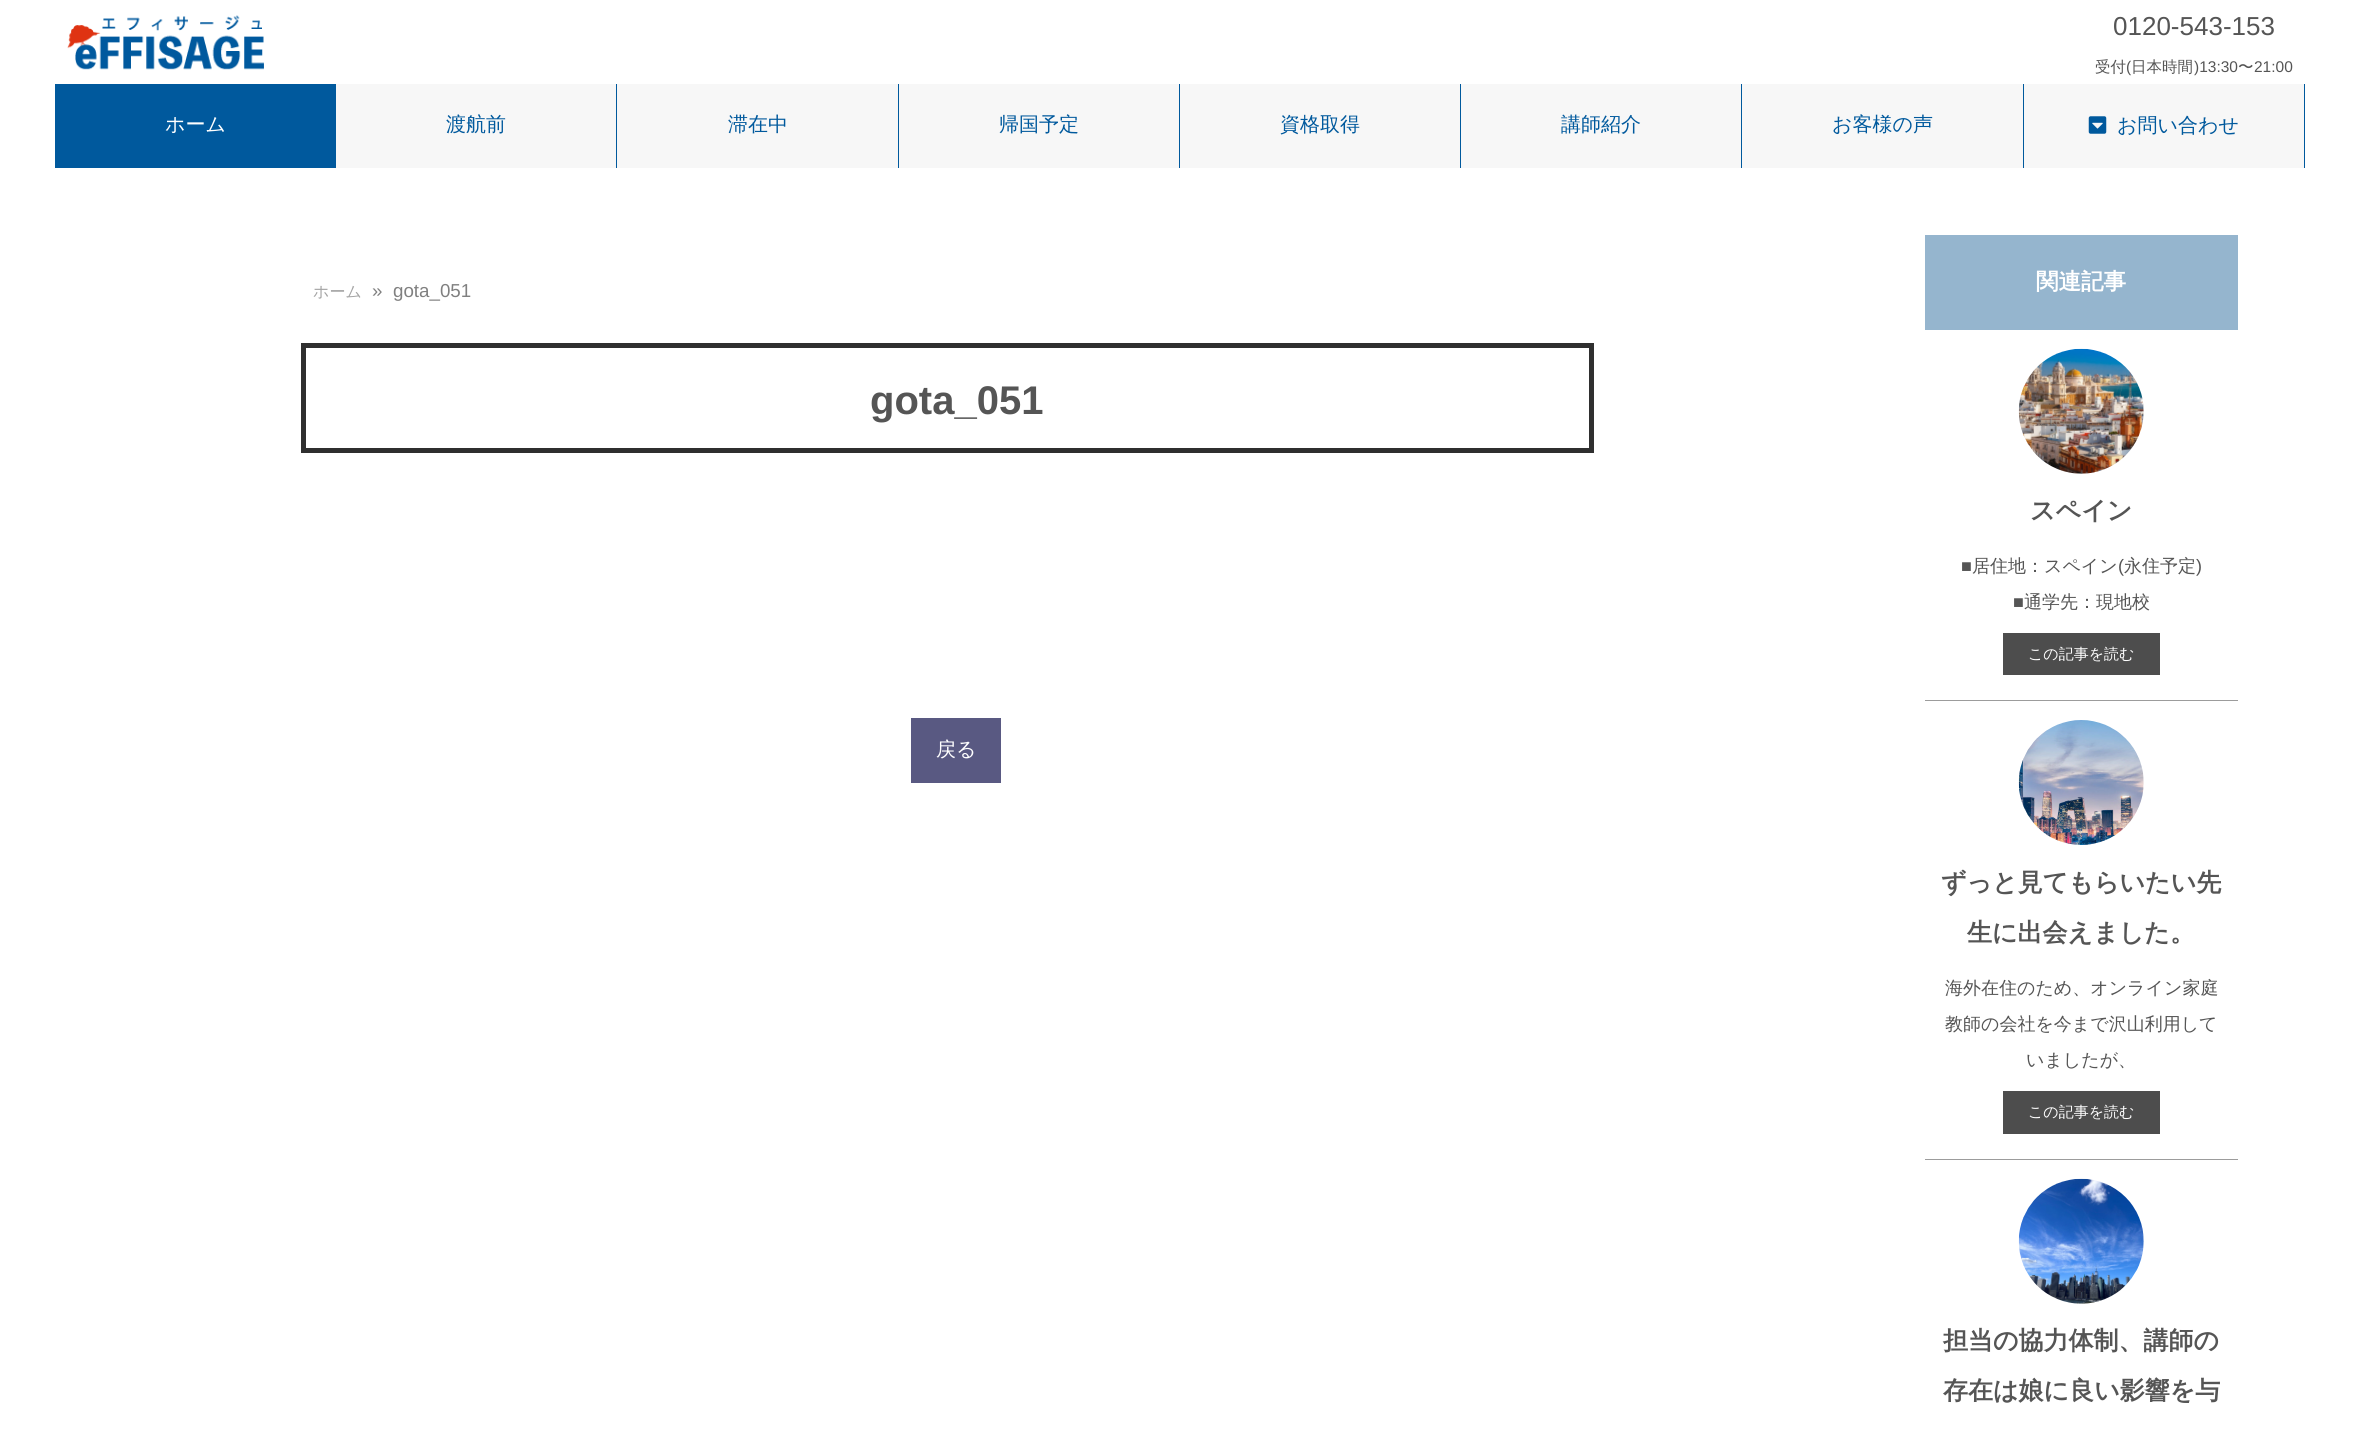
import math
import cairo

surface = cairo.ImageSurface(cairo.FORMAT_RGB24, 2359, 1436)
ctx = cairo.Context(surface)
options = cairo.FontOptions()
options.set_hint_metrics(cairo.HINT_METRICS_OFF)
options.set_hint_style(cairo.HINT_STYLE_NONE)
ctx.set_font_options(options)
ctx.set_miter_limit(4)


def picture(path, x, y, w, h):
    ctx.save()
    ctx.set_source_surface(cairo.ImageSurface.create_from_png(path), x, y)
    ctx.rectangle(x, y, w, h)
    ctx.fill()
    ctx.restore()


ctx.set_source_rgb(1, 1, 1)
ctx.paint()
picture("img1.png", 67, 15, 197, 55)
ctx.select_font_face("Liberation Sans")
ctx.set_font_size(26)
ctx.set_source_rgb(0.333, 0.333, 0.333)
ctx.move_to(2113, 35)
ctx.show_text("0120-543-153")
ctx.select_font_face("WenQuanYi Zen Hei Medium")
ctx.set_font_size(15.5)
ctx.move_to(2095, 72)
ctx.show_text("受付")
ctx.select_font_face("Liberation Sans")
ctx.move_to(2126, 72)
ctx.show_text("(")
ctx.select_font_face("WenQuanYi Zen Hei Medium")
ctx.move_to(2131, 72)
ctx.show_text("日本時間")
ctx.select_font_face("Liberation Sans")
ctx.move_to(2194, 72)
ctx.show_text(")13:30")
ctx.select_font_face("WenQuanYi Zen Hei Medium")
ctx.move_to(2238, 72)
ctx.show_text("〜")
ctx.select_font_face("Liberation Sans")
ctx.move_to(2254, 72)
ctx.show_text("21:00")
ctx.set_source_rgb(0, 0.349, 0.616)
ctx.rectangle(55, 84, 281, 84)
ctx.fill()
ctx.select_font_face("WenQuanYi Zen Hei Medium")
ctx.set_font_size(20)
ctx.set_source_rgb(1, 1, 1)
ctx.move_to(165, 131)
ctx.show_text("ホーム")
ctx.set_source_rgb(0.965, 0.965, 0.965)
ctx.rectangle(336, 84, 562, 84)
ctx.fill()
ctx.set_source_rgb(0, 0.349, 0.616)
ctx.rectangle(616, 84, 1, 84)
ctx.fill()
ctx.move_to(446, 131)
ctx.show_text("渡航前")
ctx.rectangle(898, 84, 1, 84)
ctx.fill()
ctx.move_to(728, 131)
ctx.show_text("滞在中")
ctx.set_source_rgb(0.965, 0.965, 0.965)
ctx.rectangle(899, 84, 280, 84)
ctx.fill()
ctx.set_source_rgb(0, 0.349, 0.616)
ctx.rectangle(1179, 84, 1, 84)
ctx.fill()
ctx.move_to(999, 131)
ctx.show_text("帰国予定")
ctx.set_source_rgb(0.965, 0.965, 0.965)
ctx.rectangle(1180, 84, 280, 84)
ctx.fill()
ctx.set_source_rgb(0, 0.349, 0.616)
ctx.rectangle(1460, 84, 1, 84)
ctx.fill()
ctx.move_to(1280, 131)
ctx.show_text("資格取得")
ctx.set_source_rgb(0.965, 0.965, 0.965)
ctx.rectangle(1461, 84, 562, 84)
ctx.fill()
ctx.set_source_rgb(0, 0.349, 0.616)
ctx.rectangle(1741, 84, 1, 84)
ctx.fill()
ctx.move_to(1561, 131)
ctx.show_text("講師紹介")
ctx.rectangle(2023, 84, 1, 84)
ctx.fill()
ctx.move_to(1832, 131)
ctx.show_text("お客様の声")
ctx.set_source_rgb(0.965, 0.965, 0.965)
ctx.rectangle(2024, 84, 280, 84)
ctx.fill()
ctx.set_source_rgb(0, 0.349, 0.616)
ctx.rectangle(2304, 84, 1, 84)
ctx.fill()
picture("img2.png", 2088, 116, 19, 18)
ctx.move_to(2117, 132)
ctx.show_text("お問い合わせ")
ctx.set_font_size(16)
ctx.set_source_rgb(0.643, 0.643, 0.643)
ctx.move_to(313, 297)
ctx.show_text("ホーム")
ctx.select_font_face("Liberation Sans")
ctx.set_font_size(18.75)
ctx.set_source_rgb(0.502, 0.502, 0.502)
ctx.move_to(372, 297)
ctx.show_text("»")
ctx.move_to(393, 297)
ctx.show_text("gota_051")
ctx.rectangle(303.5, 345.5, 1288, 105)
ctx.set_source_rgb(0.184, 0.184, 0.184)
ctx.set_line_width(5)
ctx.stroke()
ctx.select_font_face("Liberation Sans", cairo.FONT_SLANT_NORMAL, cairo.FONT_WEIGHT_BOLD)
ctx.set_font_size(40)
ctx.set_source_rgb(0.333, 0.333, 0.333)
ctx.move_to(870, 414)
ctx.show_text("gota_051")
ctx.set_source_rgb(0.349, 0.349, 0.51)
ctx.rectangle(911, 718, 90, 65)
ctx.fill()
ctx.select_font_face("WenQuanYi Zen Hei Medium")
ctx.set_font_size(20)
ctx.set_source_rgb(1, 1, 1)
ctx.move_to(936, 756)
ctx.show_text("戻る")
ctx.set_source_rgb(0.584, 0.71, 0.808)
ctx.rectangle(1925, 235, 313, 95)
ctx.fill()
ctx.select_font_face("WenQuanYi Zen Hei", cairo.FONT_SLANT_NORMAL, cairo.FONT_WEIGHT_BOLD)
ctx.set_font_size(22.5)
ctx.set_source_rgb(1, 1, 1)
ctx.move_to(2036, 289)
ctx.show_text("関連記事")
ctx.set_source_rgb(0.612, 0.612, 0.612)
ctx.rectangle(1925, 700, 313, 1)
ctx.fill()
picture("img3.png", 2018, 348, 126, 126)
ctx.set_font_size(25)
ctx.set_source_rgb(0.333, 0.333, 0.333)
ctx.move_to(2030, 519)
ctx.show_text("スペイン")
ctx.select_font_face("Liberation Sans")
ctx.set_font_size(18)
ctx.move_to(1961, 572)
ctx.show_text("■")
ctx.select_font_face("WenQuanYi Zen Hei Medium")
ctx.move_to(1972, 572)
ctx.show_text("居住地：スペイン")
ctx.select_font_face("Liberation Sans")
ctx.move_to(2118, 572)
ctx.show_text("(")
ctx.select_font_face("WenQuanYi Zen Hei Medium")
ctx.move_to(2124, 572)
ctx.show_text("永住予定")
ctx.select_font_face("Liberation Sans")
ctx.move_to(2196, 572)
ctx.show_text(")")
ctx.move_to(2013, 608)
ctx.show_text("■")
ctx.select_font_face("WenQuanYi Zen Hei Medium")
ctx.move_to(2024, 608)
ctx.show_text("通学先：現地校")
ctx.set_source_rgb(0.302, 0.302, 0.302)
ctx.rectangle(2003, 633, 157, 42)
ctx.fill()
ctx.set_font_size(15)
ctx.set_source_rgb(1, 1, 1)
ctx.move_to(2028, 659)
ctx.show_text("この記事を読む")
ctx.set_source_rgb(0.612, 0.612, 0.612)
ctx.rectangle(1925, 1159, 313, 1)
ctx.fill()
picture("img4.png", 2018, 720, 126, 125)
ctx.select_font_face("WenQuanYi Zen Hei", cairo.FONT_SLANT_NORMAL, cairo.FONT_WEIGHT_BOLD)
ctx.set_font_size(25)
ctx.set_source_rgb(0.333, 0.333, 0.333)
ctx.move_to(1941, 891)
ctx.show_text("ずっと見てもらいたい先")
ctx.move_to(1967, 941)
ctx.show_text("生に出会えました。")
ctx.select_font_face("WenQuanYi Zen Hei Medium")
ctx.set_font_size(18)
ctx.move_to(1945, 994)
ctx.show_text("海外在住のため、オンライン家庭")
ctx.move_to(1945, 1030)
ctx.show_text("教師の会社を今まで沢山利用して")
ctx.move_to(2026, 1066)
ctx.show_text("いましたが、")
ctx.set_source_rgb(0.302, 0.302, 0.302)
ctx.rectangle(2003, 1091, 157, 43)
ctx.fill()
ctx.set_font_size(15)
ctx.set_source_rgb(1, 1, 1)
ctx.move_to(2028, 1117)
ctx.show_text("この記事を読む")
picture("img5.png", 2018, 1178, 126, 126)
ctx.select_font_face("WenQuanYi Zen Hei", cairo.FONT_SLANT_NORMAL, cairo.FONT_WEIGHT_BOLD)
ctx.set_font_size(25)
ctx.set_source_rgb(0.333, 0.333, 0.333)
ctx.move_to(1943, 1349)
ctx.show_text("担当の協力体制、講師の")
ctx.move_to(1943, 1399)
ctx.show_text("存在は娘に良い影響を与")
surface.write_to_png("page.png")
